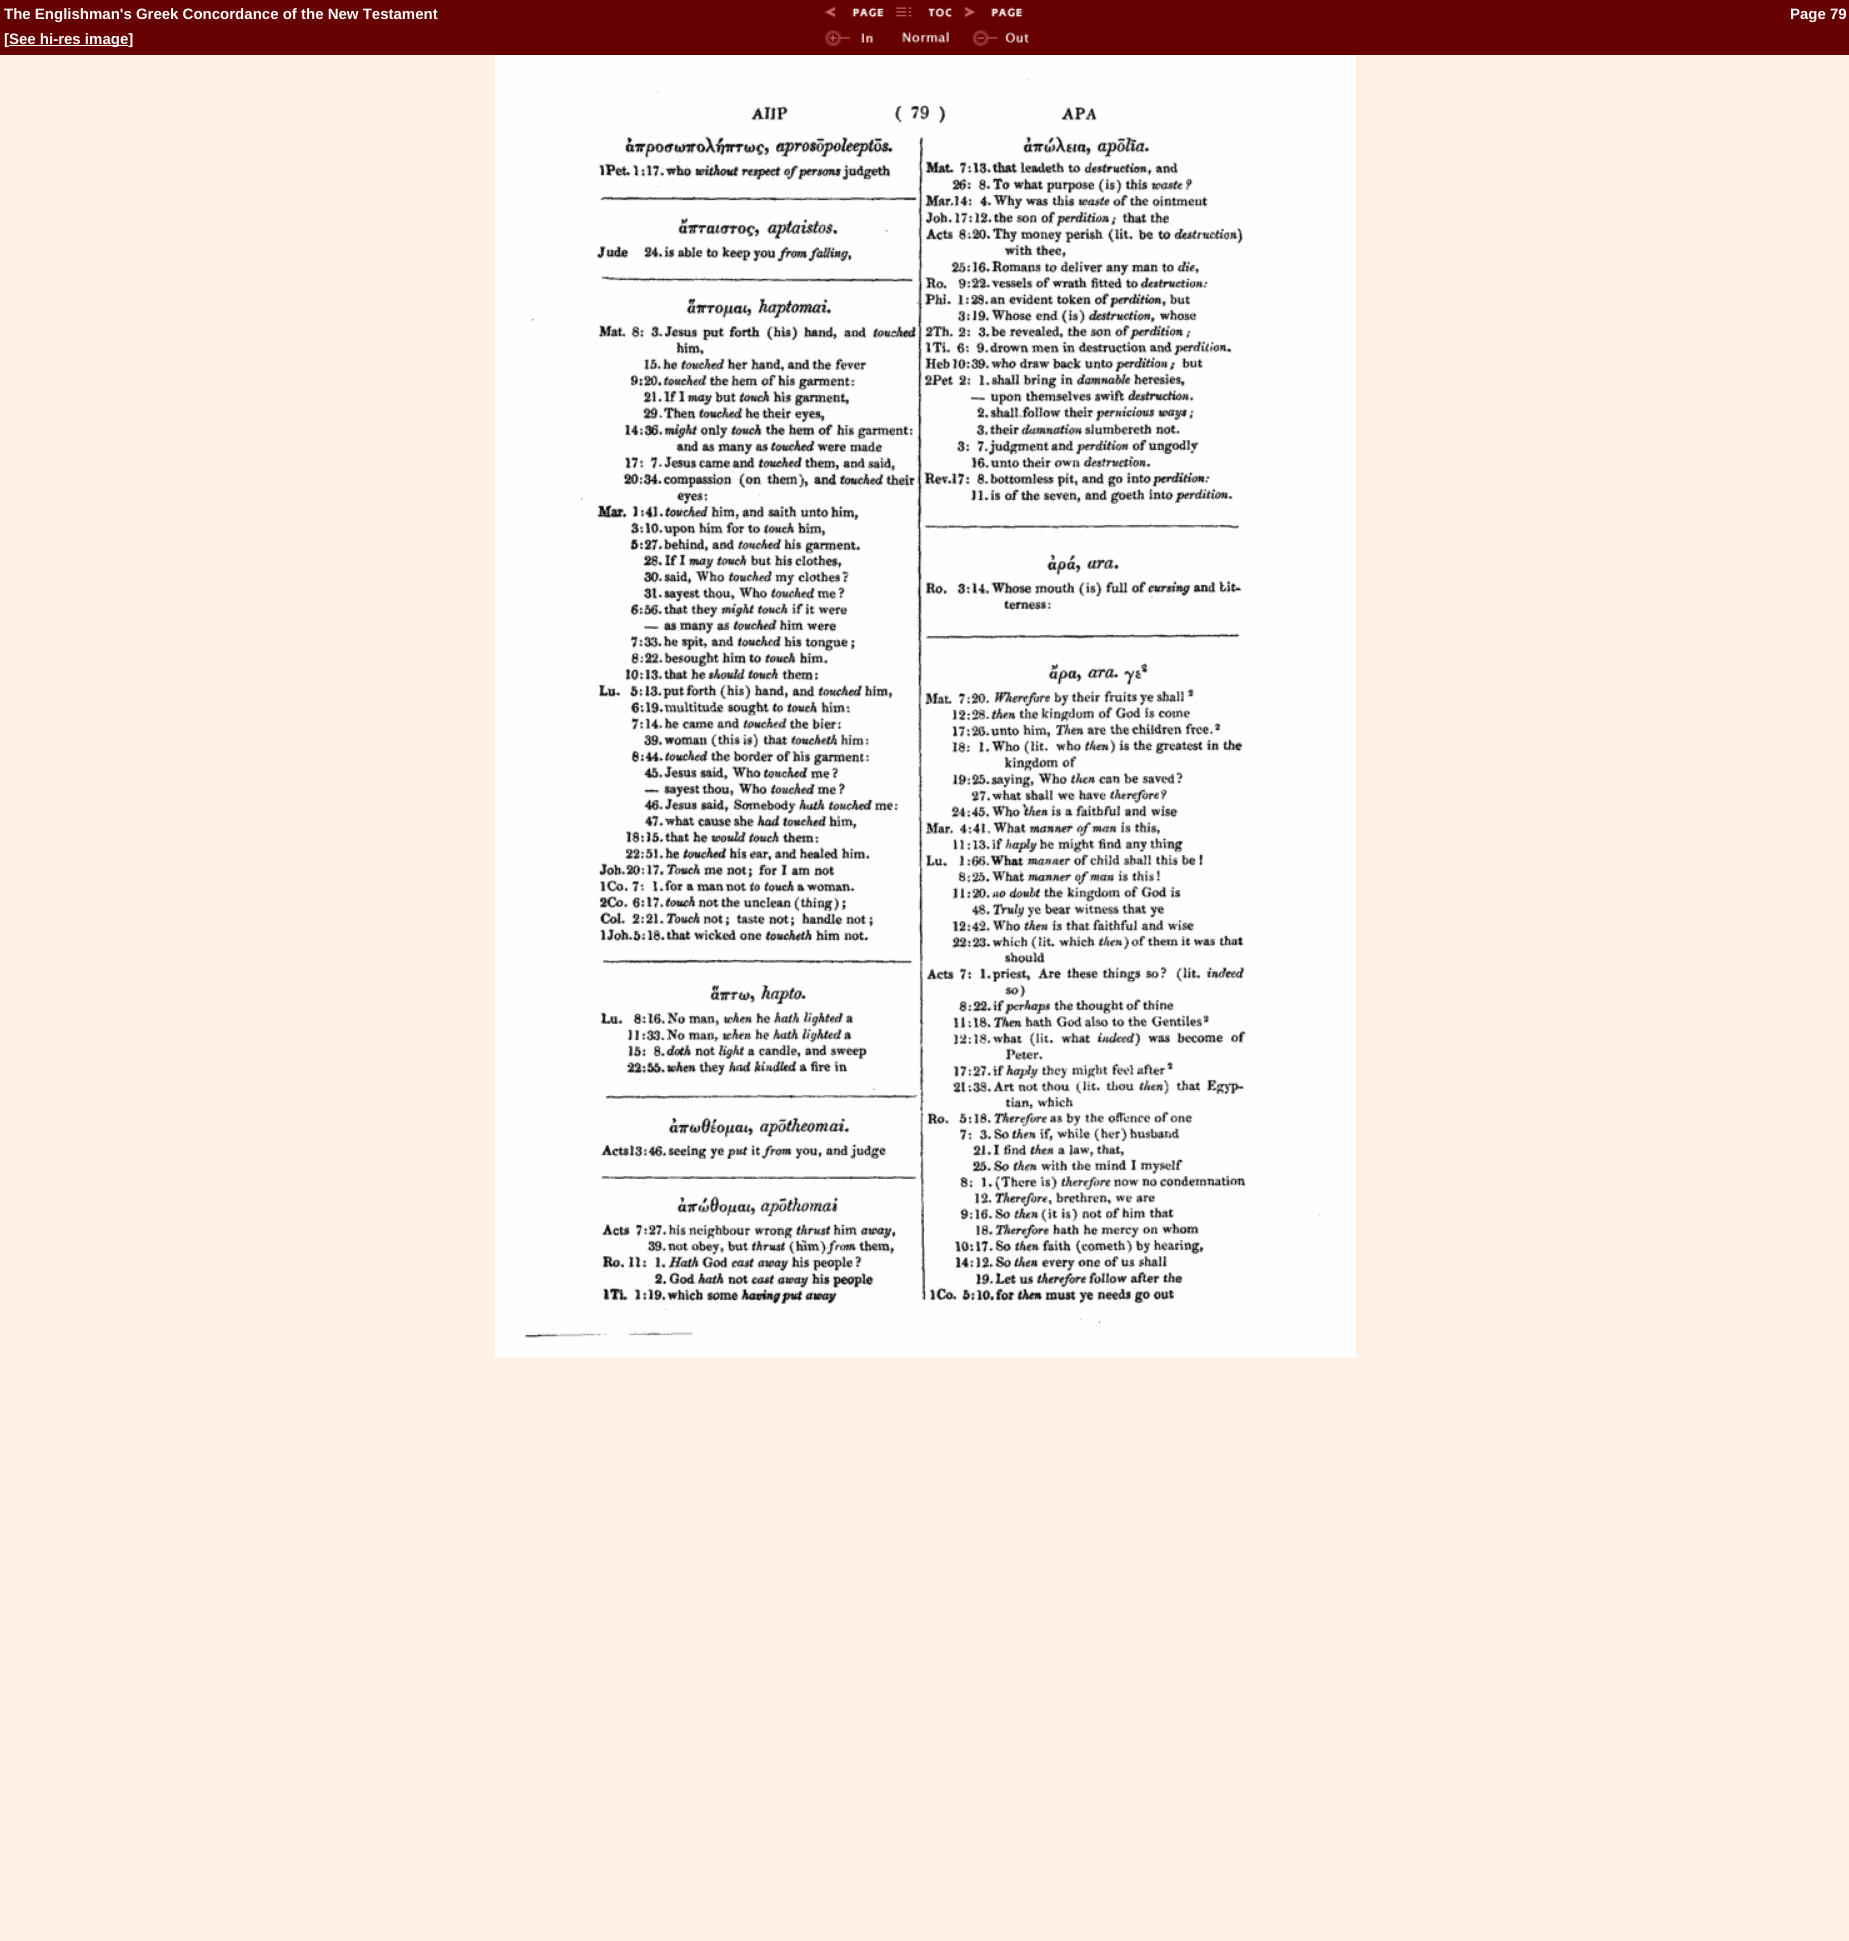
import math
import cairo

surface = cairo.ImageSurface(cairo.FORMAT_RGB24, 1849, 1941)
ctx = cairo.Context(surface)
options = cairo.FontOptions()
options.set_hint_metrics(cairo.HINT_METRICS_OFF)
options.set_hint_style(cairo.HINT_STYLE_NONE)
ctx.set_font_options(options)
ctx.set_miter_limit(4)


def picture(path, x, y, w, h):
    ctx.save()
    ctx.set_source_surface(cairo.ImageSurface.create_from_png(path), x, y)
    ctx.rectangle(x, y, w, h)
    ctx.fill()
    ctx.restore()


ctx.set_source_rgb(1, 0.941, 0.902)
ctx.paint()
ctx.set_source_rgb(0.4, 0, 0)
ctx.rectangle(0, 0, 1849, 55)
ctx.fill()
ctx.select_font_face("Liberation Sans", cairo.FONT_SLANT_NORMAL, cairo.FONT_WEIGHT_BOLD)
ctx.set_font_size(15)
ctx.set_source_rgb(1, 1, 1)
ctx.move_to(4, 19)
ctx.show_text("The Englishman's Greek Concordance of the New Testament")
picture("img1.png", 825, 6, 59, 12)
picture("img2.png", 896, 7, 56, 11)
picture("img3.png", 964, 6, 59, 12)
ctx.move_to(1790, 19)
ctx.show_text("Page 79")
ctx.move_to(4, 44)
ctx.show_text("[")
ctx.rectangle(9, 45, 119, 1)
ctx.fill()
ctx.move_to(9, 44)
ctx.show_text("See hi-res image]")
picture("img4.png", 824, 30, 49, 17)
picture("img5.png", 902, 31, 47, 12)
picture("img6.png", 972, 30, 57, 17)
picture("img7.png", 495, 55, 862, 1303)
surface.write_to_png("page.png")
